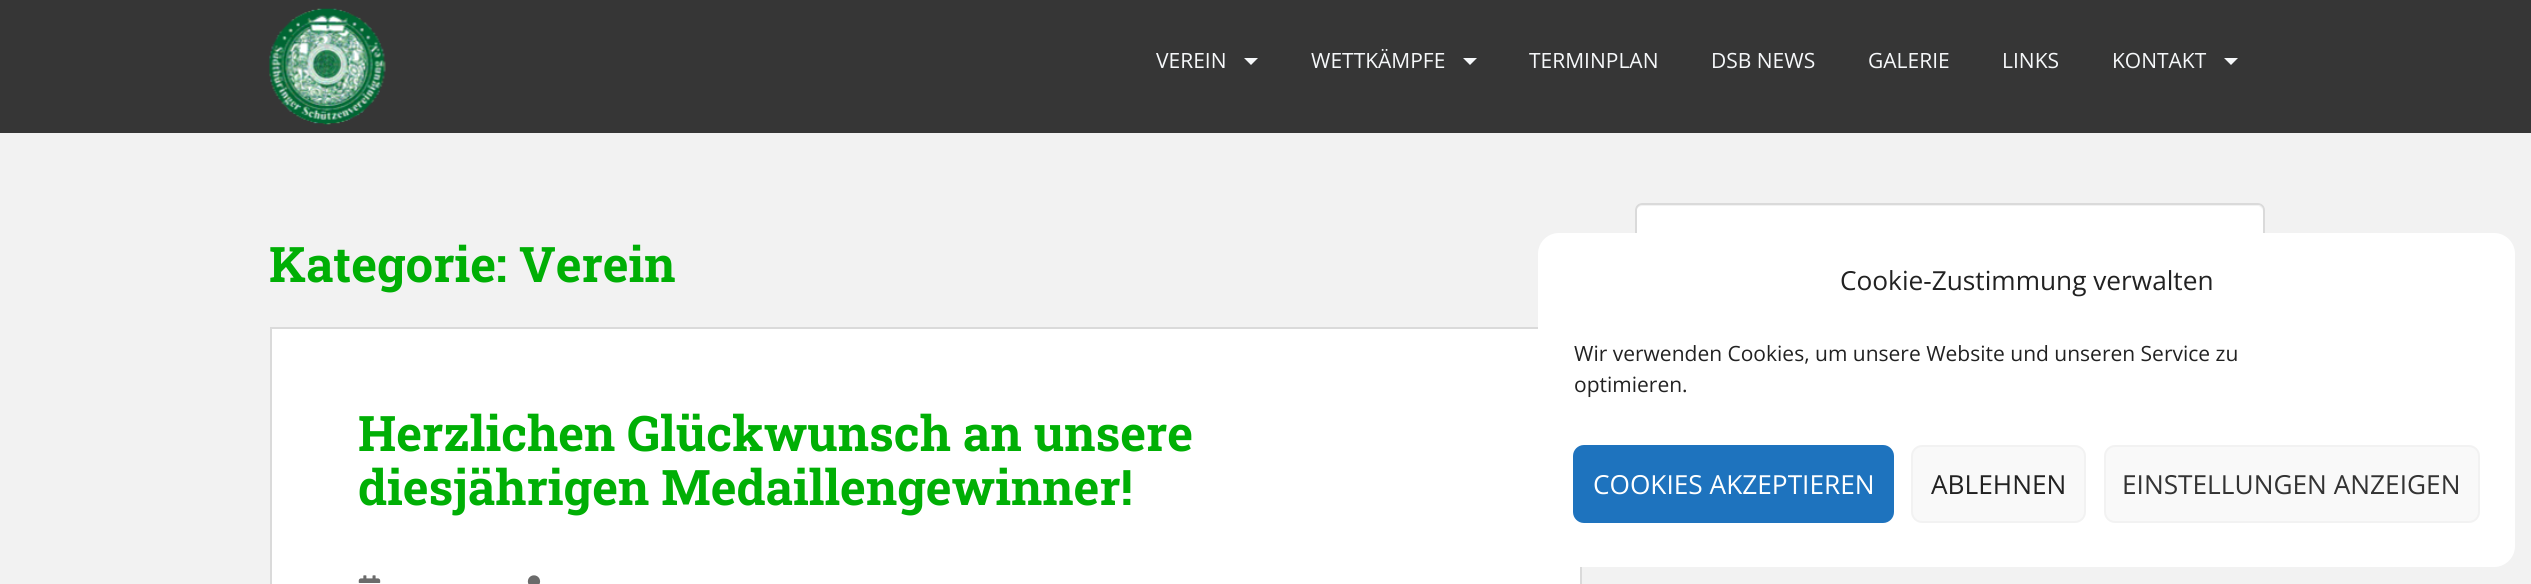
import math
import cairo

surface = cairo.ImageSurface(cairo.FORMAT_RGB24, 2531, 584)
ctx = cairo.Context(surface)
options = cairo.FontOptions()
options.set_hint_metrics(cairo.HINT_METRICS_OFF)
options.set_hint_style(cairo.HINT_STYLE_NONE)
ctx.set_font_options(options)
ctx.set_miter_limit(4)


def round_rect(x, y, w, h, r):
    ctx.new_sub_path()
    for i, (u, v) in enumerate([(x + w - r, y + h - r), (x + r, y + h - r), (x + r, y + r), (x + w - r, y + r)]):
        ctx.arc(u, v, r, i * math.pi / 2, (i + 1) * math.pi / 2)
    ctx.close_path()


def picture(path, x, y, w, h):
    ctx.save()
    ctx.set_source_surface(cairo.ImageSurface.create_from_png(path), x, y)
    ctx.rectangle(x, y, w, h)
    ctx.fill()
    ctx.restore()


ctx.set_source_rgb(0.949, 0.949, 0.949)
ctx.paint()
ctx.set_source_rgb(0.212, 0.212, 0.212)
ctx.rectangle(0, 0, 2531, 133)
ctx.fill()
picture("img1.png", 269, 8, 117, 117)
ctx.select_font_face("Open Sans")
ctx.set_font_size(21)
ctx.set_source_rgb(0.961, 0.969, 0.98)
ctx.move_to(1156, 68)
ctx.show_text("VEREIN")
ctx.new_path()
ctx.move_to(1244, 58)
ctx.line_to(1258, 58)
ctx.line_to(1251, 65)
ctx.close_path()
ctx.fill()
ctx.move_to(1311, 68)
ctx.show_text("WETTKÄMPFE")
ctx.new_path()
ctx.move_to(1463, 58)
ctx.line_to(1477, 58)
ctx.line_to(1470, 65)
ctx.close_path()
ctx.fill()
ctx.move_to(1529, 68)
ctx.show_text("TERMINPLAN")
ctx.move_to(1711, 68)
ctx.show_text("DSB NEWS")
ctx.move_to(1868, 68)
ctx.show_text("GALERIE")
ctx.move_to(2002, 68)
ctx.show_text("LINKS")
ctx.move_to(2112, 68)
ctx.show_text("KONTAKT")
ctx.new_path()
ctx.move_to(2224, 58)
ctx.line_to(2238, 58)
ctx.line_to(2231, 65)
ctx.close_path()
ctx.fill()
ctx.select_font_face("Roboto Slab", cairo.FONT_SLANT_NORMAL, cairo.FONT_WEIGHT_BOLD)
ctx.set_font_size(49)
ctx.set_source_rgb(0, 0.686, 0.02)
ctx.move_to(269, 282)
ctx.show_text("Kategorie: Verein")
ctx.set_source_rgb(1, 1, 1)
ctx.rectangle(271, 328, 1310, 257)
ctx.fill_preserve()
ctx.set_source_rgb(0.855, 0.855, 0.855)
ctx.stroke()
ctx.set_source_rgb(0, 0.686, 0.02)
ctx.move_to(358, 451)
ctx.show_text("Herzlichen Glückwunsch an unsere")
ctx.move_to(358, 505)
ctx.show_text("diesjährigen Medaillengewinner!")
picture("img2.png", 358, 575, 23, 8)
picture("img3.png", 527, 575, 14, 9)
ctx.set_source_rgb(1, 1, 1)
round_rect(1635, 203, 630, 168, 7)
ctx.fill()
ctx.set_source_rgb(0.949, 0.949, 0.949)
ctx.new_path()
ctx.move_to(1642, 206)
ctx.line_to(2258, 206)
ctx.curve_to(2260, 206, 2263, 209, 2263, 212)
ctx.curve_to(2263, 209, 2262, 205, 2258, 205)
ctx.line_to(1641, 205)
ctx.curve_to(1637, 205, 1636, 209, 1636, 212)
ctx.curve_to(1636, 209, 1639, 206, 1642, 206)
ctx.close_path()
ctx.fill()
round_rect(1636, 204, 628, 166, 6)
ctx.set_source_rgb(0.855, 0.855, 0.855)
ctx.stroke()
ctx.set_source_rgb(1, 1, 1)
round_rect(1538, 233, 977, 334, 21)
ctx.fill()
ctx.select_font_face("Open Sans")
ctx.set_font_size(26.25)
ctx.set_source_rgb(0.133, 0.133, 0.133)
ctx.move_to(1840, 290)
ctx.show_text("Cookie-Zustimmung verwalten")
ctx.set_font_size(21)
ctx.move_to(1574, 361)
ctx.show_text("Wir verwenden Cookies, um unsere Website und unseren Service zu")
ctx.move_to(1574, 392)
ctx.show_text("optimieren.")
ctx.set_source_rgb(0.118, 0.451, 0.745)
round_rect(1574, 446, 319, 76, 10)
ctx.fill_preserve()
ctx.stroke()
ctx.set_font_size(26.25)
ctx.set_source_rgb(1, 1, 1)
ctx.move_to(1593, 494)
ctx.show_text("COOKIES AKZEPTIEREN")
ctx.set_source_rgb(0.976, 0.976, 0.976)
round_rect(1912, 446, 173, 76, 10)
ctx.fill_preserve()
ctx.set_source_rgb(0.949, 0.949, 0.949)
ctx.stroke()
ctx.set_source_rgb(0.133, 0.133, 0.133)
ctx.move_to(1931, 494)
ctx.show_text("ABLEHNEN")
ctx.set_source_rgb(0.976, 0.976, 0.976)
round_rect(2105, 446, 374, 76, 10)
ctx.fill_preserve()
ctx.set_source_rgb(0.949, 0.949, 0.949)
ctx.stroke()
ctx.set_source_rgb(0.2, 0.2, 0.2)
ctx.move_to(2122, 494)
ctx.show_text("EINSTELLUNGEN ANZEIGEN")
surface.write_to_png("page.png")
